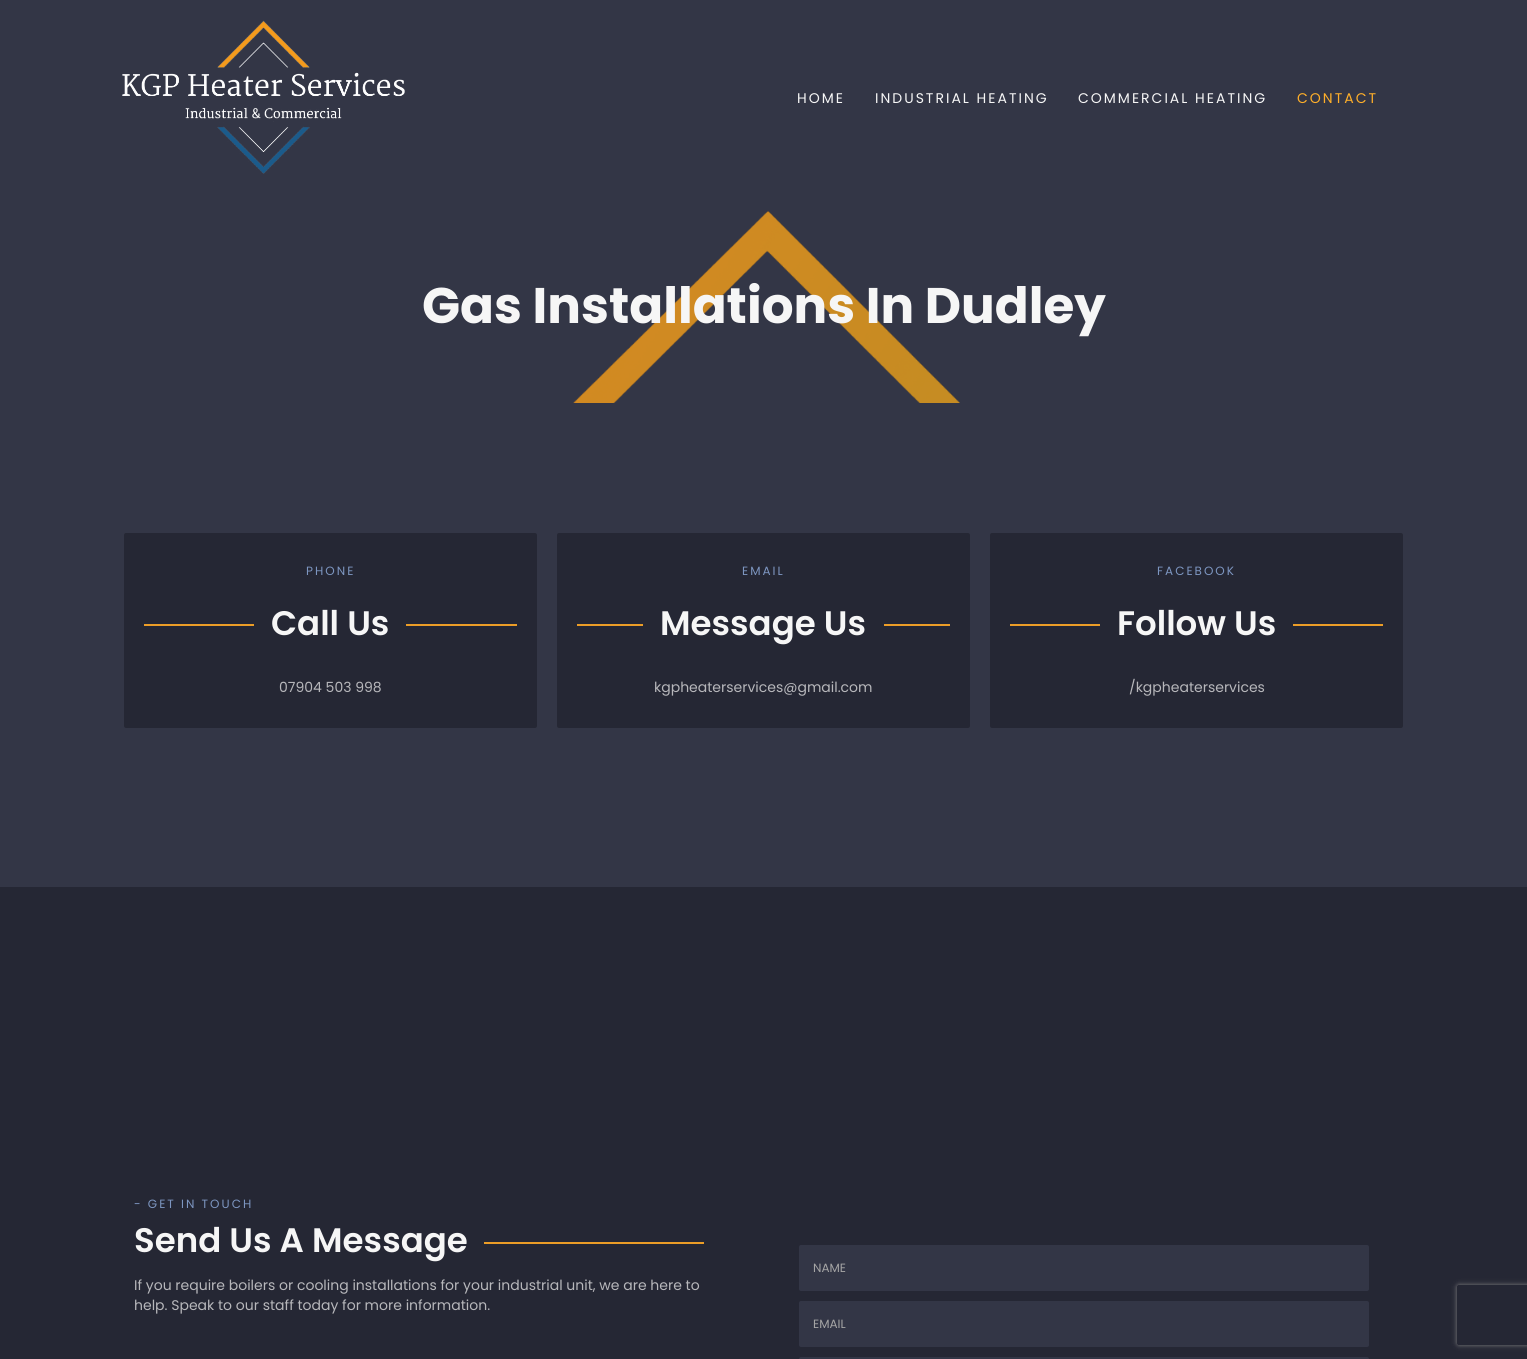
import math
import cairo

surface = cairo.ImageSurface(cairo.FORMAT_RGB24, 1527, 1359)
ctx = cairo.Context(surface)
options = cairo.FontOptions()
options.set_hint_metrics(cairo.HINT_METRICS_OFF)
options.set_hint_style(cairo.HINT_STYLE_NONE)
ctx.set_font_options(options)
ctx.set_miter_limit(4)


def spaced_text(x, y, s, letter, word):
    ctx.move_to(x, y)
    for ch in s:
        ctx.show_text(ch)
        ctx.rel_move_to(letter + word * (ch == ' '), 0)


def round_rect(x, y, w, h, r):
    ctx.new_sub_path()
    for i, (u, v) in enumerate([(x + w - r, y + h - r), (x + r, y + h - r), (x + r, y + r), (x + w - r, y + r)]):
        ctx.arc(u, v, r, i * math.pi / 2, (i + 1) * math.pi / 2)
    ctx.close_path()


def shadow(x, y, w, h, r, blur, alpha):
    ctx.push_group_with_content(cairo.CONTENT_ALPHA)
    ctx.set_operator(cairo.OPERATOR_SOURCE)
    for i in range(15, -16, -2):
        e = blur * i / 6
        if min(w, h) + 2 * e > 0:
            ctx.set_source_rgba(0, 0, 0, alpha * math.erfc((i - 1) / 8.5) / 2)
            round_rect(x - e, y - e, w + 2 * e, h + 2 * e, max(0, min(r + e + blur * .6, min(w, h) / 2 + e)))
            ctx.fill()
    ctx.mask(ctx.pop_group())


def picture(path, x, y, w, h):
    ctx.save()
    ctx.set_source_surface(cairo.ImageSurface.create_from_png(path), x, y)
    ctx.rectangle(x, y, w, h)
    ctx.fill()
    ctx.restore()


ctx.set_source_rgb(0.2, 0.212, 0.275)
ctx.paint()
picture("img1.png", 122, 20, 283, 154)
ctx.select_font_face("Poppins")
ctx.set_font_size(14)
ctx.set_source_rgb(0.961, 0.961, 0.961)
spaced_text(797, 103, "HOME", 2, 0)
spaced_text(875, 103, "INDUSTRIAL HEATING", 2, 0)
spaced_text(1078, 103, "COMMERCIAL HEATING", 2, 0)
ctx.set_source_rgb(1, 0.686, 0.161)
spaced_text(1297, 103, "CONTACT", 2, 0)
picture("img2.png", 573, 211, 387, 192)
ctx.select_font_face("Poppins", cairo.FONT_SLANT_NORMAL, cairo.FONT_WEIGHT_BOLD)
ctx.set_font_size(50)
ctx.set_source_rgb(0.961, 0.961, 0.961)
ctx.move_to(422, 323)
ctx.show_text("Gas Installations In Dudley")
ctx.set_source_rgb(0.145, 0.153, 0.204)
round_rect(124, 533, 413, 195, 2)
ctx.fill()
ctx.select_font_face("Poppins")
ctx.set_font_size(12)
ctx.set_source_rgb(0.49, 0.588, 0.757)
spaced_text(306, 575, "PHONE", 2, 0)
ctx.set_source_rgb(0.922, 0.616, 0.153)
ctx.rectangle(144, 624, 110, 2)
ctx.fill()
ctx.select_font_face("Poppins SemiBold")
ctx.set_font_size(34)
ctx.set_source_rgb(0.961, 0.961, 0.961)
ctx.move_to(271, 635)
ctx.show_text("Call Us")
ctx.set_source_rgb(0.922, 0.616, 0.153)
ctx.rectangle(406, 624, 111, 2)
ctx.fill()
ctx.select_font_face("Poppins")
ctx.set_font_size(14)
ctx.set_source_rgb(0.718, 0.718, 0.733)
ctx.move_to(279, 692)
ctx.show_text("07904 503 998")
ctx.set_source_rgb(0.145, 0.153, 0.204)
round_rect(557, 533, 413, 195, 2)
ctx.fill()
ctx.set_font_size(12)
ctx.set_source_rgb(0.49, 0.588, 0.757)
spaced_text(742, 575, "EMAIL", 2, 0)
ctx.set_source_rgb(0.922, 0.616, 0.153)
ctx.rectangle(577, 624, 66, 2)
ctx.fill()
ctx.select_font_face("Poppins SemiBold")
ctx.set_font_size(34)
ctx.set_source_rgb(0.961, 0.961, 0.961)
ctx.move_to(660, 635)
ctx.show_text("Message Us")
ctx.set_source_rgb(0.922, 0.616, 0.153)
ctx.rectangle(884, 624, 66, 2)
ctx.fill()
ctx.select_font_face("Poppins")
ctx.set_font_size(14)
ctx.set_source_rgb(0.718, 0.718, 0.733)
ctx.move_to(654, 692)
ctx.show_text("kgpheaterservices@gmail.com")
ctx.set_source_rgb(0.145, 0.153, 0.204)
round_rect(990, 533, 413, 195, 2)
ctx.fill()
ctx.set_font_size(12)
ctx.set_source_rgb(0.49, 0.588, 0.757)
spaced_text(1157, 575, "FACEBOOK", 2, 0)
ctx.set_source_rgb(0.922, 0.616, 0.153)
ctx.rectangle(1010, 624, 90, 2)
ctx.fill()
ctx.select_font_face("Poppins SemiBold")
ctx.set_font_size(34)
ctx.set_source_rgb(0.961, 0.961, 0.961)
ctx.move_to(1117, 635)
ctx.show_text("Follow Us")
ctx.set_source_rgb(0.922, 0.616, 0.153)
ctx.rectangle(1293, 624, 90, 2)
ctx.fill()
ctx.select_font_face("Poppins")
ctx.set_font_size(14)
ctx.set_source_rgb(0.718, 0.718, 0.733)
ctx.move_to(1129, 692)
ctx.show_text("/kgpheaterservices")
ctx.set_source_rgb(0.145, 0.153, 0.204)
ctx.rectangle(0, 887, 1527, 472)
ctx.fill()
ctx.set_font_size(12)
ctx.set_source_rgb(0.49, 0.588, 0.757)
spaced_text(134, 1208, "- GET IN TOUCH", 2, 0)
ctx.select_font_face("Poppins SemiBold")
ctx.set_font_size(34)
ctx.set_source_rgb(0.961, 0.961, 0.961)
ctx.move_to(134, 1252)
ctx.show_text("Send Us A Message")
ctx.set_source_rgb(0.922, 0.616, 0.153)
ctx.rectangle(484, 1242, 220, 2)
ctx.fill()
ctx.select_font_face("Poppins")
ctx.set_font_size(14)
ctx.set_source_rgb(0.718, 0.718, 0.733)
ctx.move_to(134, 1290)
ctx.show_text("If you require boilers or cooling installations for your industrial unit, we are here to")
ctx.move_to(134, 1310)
ctx.show_text("help. Speak to our staff today for more information.")
ctx.set_source_rgb(0.2, 0.212, 0.275)
round_rect(800, 1246, 568, 44, 1)
ctx.fill_preserve()
ctx.stroke()
ctx.set_font_size(12)
ctx.set_source_rgb(0.647, 0.647, 0.647)
ctx.move_to(813, 1272)
ctx.show_text("NAME")
ctx.set_source_rgb(0.2, 0.212, 0.275)
round_rect(800, 1302, 568, 44, 1)
ctx.fill_preserve()
ctx.stroke()
ctx.set_source_rgb(0.647, 0.647, 0.647)
ctx.move_to(813, 1328)
ctx.show_text("EMAIL")
round_rect(800, 1358, 568, 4, 1)
ctx.set_source_rgb(0.2, 0.212, 0.275)
ctx.stroke()
ctx.save()
ctx.set_fill_rule(cairo.FILL_RULE_EVEN_ODD)
ctx.new_path()
ctx.move_to(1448, 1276)
ctx.line_to(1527, 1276)
ctx.line_to(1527, 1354)
ctx.line_to(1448, 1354)
ctx.close_path()
ctx.move_to(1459, 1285)
ctx.line_to(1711, 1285)
ctx.curve_to(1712, 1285, 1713, 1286, 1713, 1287)
ctx.line_to(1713, 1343)
ctx.curve_to(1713, 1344, 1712, 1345, 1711, 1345)
ctx.line_to(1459, 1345)
ctx.curve_to(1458, 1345, 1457, 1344, 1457, 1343)
ctx.line_to(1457, 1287)
ctx.curve_to(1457, 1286, 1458, 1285, 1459, 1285)
ctx.close_path()
ctx.clip()
ctx.set_source_rgb(0.502, 0.502, 0.502)
shadow(1457, 1285, 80, 60, 2, 2.5, 1)
ctx.restore()
surface.write_to_png("page.png")
